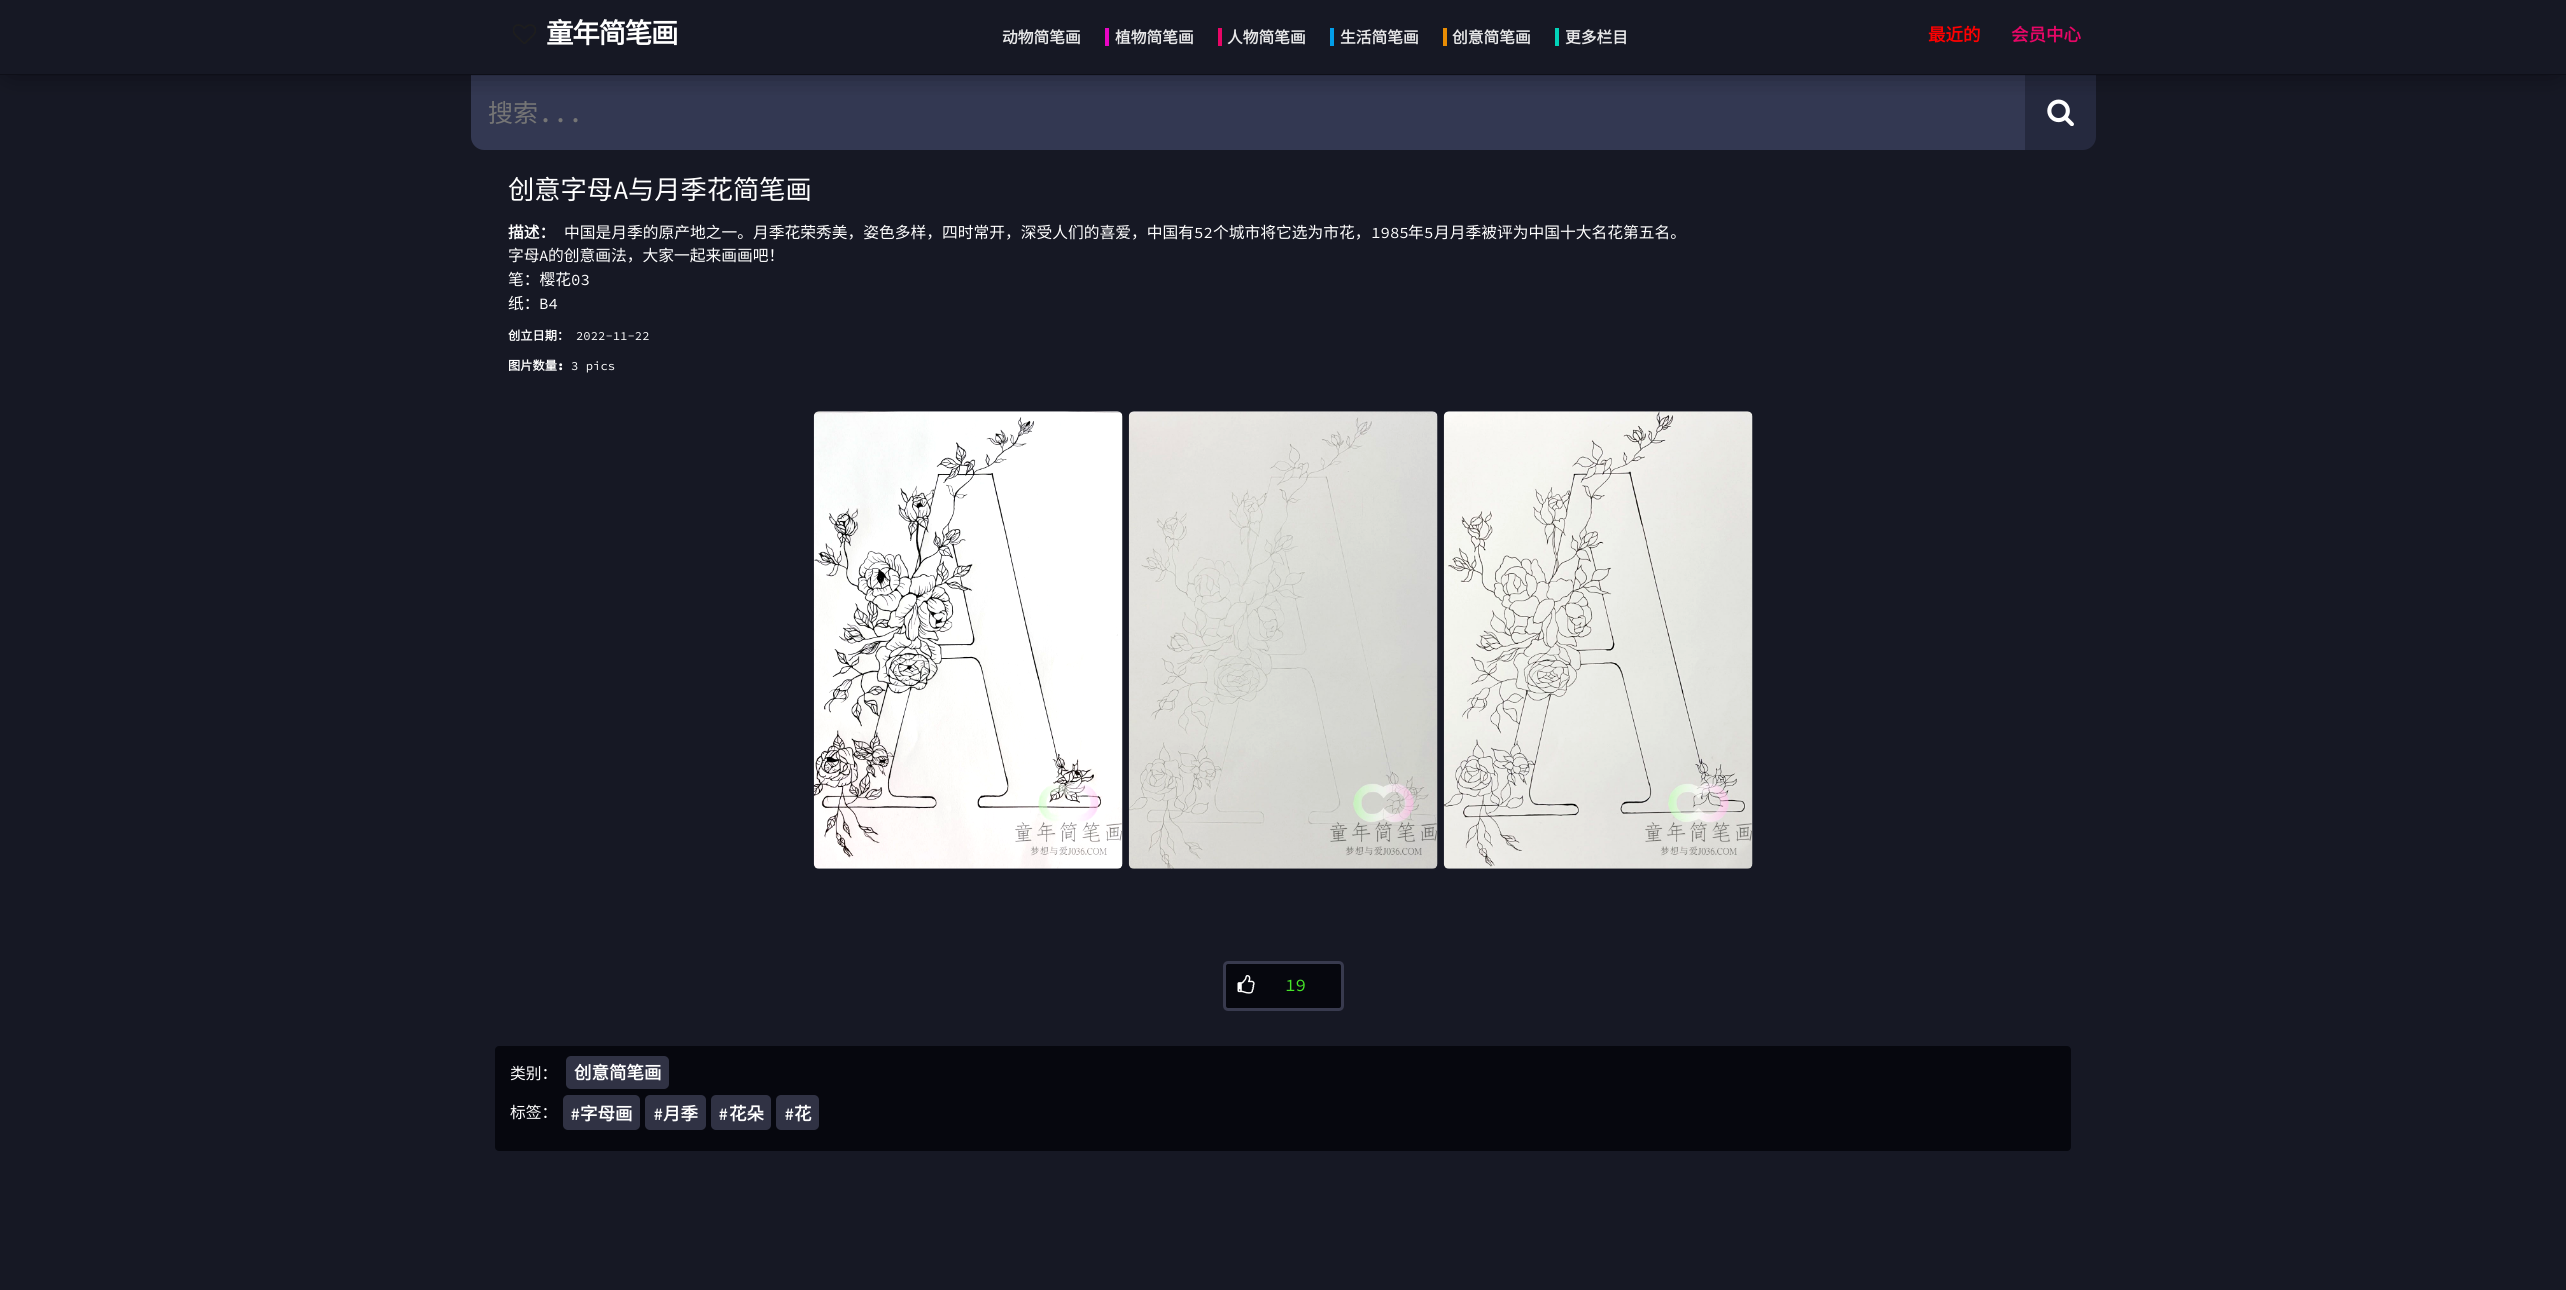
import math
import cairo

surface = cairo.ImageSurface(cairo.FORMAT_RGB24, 2566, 1290)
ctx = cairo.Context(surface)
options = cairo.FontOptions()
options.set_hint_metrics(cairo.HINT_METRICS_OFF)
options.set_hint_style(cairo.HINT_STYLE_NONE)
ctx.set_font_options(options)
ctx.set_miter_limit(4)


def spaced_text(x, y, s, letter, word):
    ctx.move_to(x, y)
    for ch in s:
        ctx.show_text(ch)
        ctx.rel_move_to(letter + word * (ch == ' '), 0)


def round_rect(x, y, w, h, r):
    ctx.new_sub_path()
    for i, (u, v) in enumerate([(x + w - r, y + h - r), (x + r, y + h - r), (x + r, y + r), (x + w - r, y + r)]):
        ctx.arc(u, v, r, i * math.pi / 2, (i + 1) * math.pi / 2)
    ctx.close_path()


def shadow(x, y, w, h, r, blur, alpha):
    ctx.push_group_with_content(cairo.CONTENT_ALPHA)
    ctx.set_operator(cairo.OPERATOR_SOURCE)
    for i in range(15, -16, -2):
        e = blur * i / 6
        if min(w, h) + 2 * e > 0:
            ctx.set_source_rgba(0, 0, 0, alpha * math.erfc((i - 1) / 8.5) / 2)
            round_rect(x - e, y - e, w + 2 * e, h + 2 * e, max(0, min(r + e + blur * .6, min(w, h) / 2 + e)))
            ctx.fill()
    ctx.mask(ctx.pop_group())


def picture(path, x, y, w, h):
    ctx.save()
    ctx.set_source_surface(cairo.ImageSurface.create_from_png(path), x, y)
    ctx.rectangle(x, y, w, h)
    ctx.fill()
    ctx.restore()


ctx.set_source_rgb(0.086, 0.094, 0.141)
ctx.paint()
ctx.set_source_rgb(0.2, 0.22, 0.322)
ctx.new_path()
ctx.move_to(471, 75)
ctx.line_to(2025, 75)
ctx.line_to(2025, 150)
ctx.line_to(484, 150)
ctx.curve_to(477, 150, 471, 144, 471, 137)
ctx.close_path()
ctx.fill()
ctx.set_source_rgb(0.145, 0.161, 0.243)
ctx.new_path()
ctx.move_to(2025, 75)
ctx.line_to(2096, 75)
ctx.line_to(2096, 137)
ctx.curve_to(2096, 144, 2090, 150, 2083, 150)
ctx.line_to(2025, 150)
ctx.close_path()
ctx.fill()
picture("img2.png", 2047, 99, 27, 27)
ctx.save()
ctx.rectangle(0, 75, 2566, 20)
ctx.clip()
ctx.set_source_rgb(0.008, 0.008, 0.016)
shadow(13, 13, 2541, 50, 0, 15.5, 1)
ctx.restore()
ctx.set_source_rgb(0.055, 0.059, 0.094)
ctx.rectangle(0, 74, 2566, 1)
ctx.fill()
picture("img1.png", 513, 24, 23, 20)
ctx.select_font_face("Noto Sans CJK SC", cairo.FONT_SLANT_NORMAL, cairo.FONT_WEIGHT_BOLD)
ctx.set_font_size(27.5)
ctx.set_source_rgb(1, 1, 1)
spaced_text(546, 43, "童年简笔画", -1.25, 0)
ctx.set_font_size(15.75)
ctx.set_source_rgb(0.91, 0.91, 0.914)
ctx.move_to(1002, 43)
ctx.show_text("动物简笔画")
ctx.move_to(1115, 43)
ctx.show_text("植物简笔画")
ctx.set_source_rgb(0.91, 0.027, 0.765)
ctx.rectangle(1105, 28, 4, 18)
ctx.fill()
ctx.set_source_rgb(0.91, 0.91, 0.914)
ctx.move_to(1227, 43)
ctx.show_text("人物简笔画")
ctx.set_source_rgb(0.91, 0.027, 0.4)
ctx.rectangle(1218, 28, 4, 18)
ctx.fill()
ctx.set_source_rgb(0.91, 0.91, 0.914)
ctx.move_to(1340, 43)
ctx.show_text("生活简笔画")
ctx.set_source_rgb(0.008, 0.62, 0.914)
ctx.rectangle(1330, 28, 4, 18)
ctx.fill()
ctx.set_source_rgb(0.91, 0.91, 0.914)
ctx.move_to(1452, 43)
ctx.show_text("创意简笔画")
ctx.set_source_rgb(0.91, 0.549, 0.016)
ctx.rectangle(1443, 28, 4, 18)
ctx.fill()
ctx.set_source_rgb(0.91, 0.91, 0.914)
ctx.move_to(1565, 43)
ctx.show_text("更多栏目")
ctx.set_source_rgb(0.008, 0.827, 0.722)
ctx.rectangle(1555, 28, 4, 18)
ctx.fill()
ctx.set_font_size(17.5)
ctx.set_source_rgb(1, 0, 0)
ctx.move_to(1928, 41)
ctx.show_text("最近的")
ctx.set_source_rgb(0.906, 0.024, 0.4)
ctx.move_to(2011, 41)
ctx.show_text("会员中心")
ctx.select_font_face("Noto Sans CJK SC")
ctx.set_font_size(25)
ctx.set_source_rgb(0.459, 0.459, 0.459)
ctx.move_to(488, 122)
ctx.show_text("搜索")
ctx.select_font_face("Source Code Pro")
ctx.move_to(538, 122)
ctx.show_text("...")
ctx.select_font_face("Noto Sans CJK SC")
ctx.set_font_size(26.25)
ctx.set_source_rgb(1, 1, 1)
ctx.move_to(508, 199)
ctx.show_text("创意字母")
ctx.select_font_face("Source Code Pro")
ctx.move_to(613, 199)
ctx.show_text("A")
ctx.select_font_face("Noto Sans CJK SC")
ctx.move_to(628, 199)
ctx.show_text("与月季花简笔画")
ctx.select_font_face("Noto Sans CJK SC", cairo.FONT_SLANT_NORMAL, cairo.FONT_WEIGHT_BOLD)
ctx.set_font_size(15.75)
ctx.move_to(508, 238)
ctx.show_text("描述：")
ctx.select_font_face("Noto Sans CJK SC")
ctx.move_to(564, 238)
ctx.show_text("中国是月季的原产地之一。月季花荣秀美，姿色多样，四时常开，深受人们的喜爱，中国有")
ctx.select_font_face("Source Code Pro")
ctx.move_to(1194, 238)
ctx.show_text("52")
ctx.select_font_face("Noto Sans CJK SC")
ctx.move_to(1213, 238)
ctx.show_text("个城市将它选为市花，")
ctx.select_font_face("Source Code Pro")
ctx.move_to(1371, 238)
ctx.show_text("1985")
ctx.select_font_face("Noto Sans CJK SC")
ctx.move_to(1408, 238)
ctx.show_text("年")
ctx.select_font_face("Source Code Pro")
ctx.move_to(1424, 238)
ctx.show_text("5")
ctx.select_font_face("Noto Sans CJK SC")
ctx.move_to(1434, 238)
ctx.show_text("月月季被评为中国十大名花第五名。")
ctx.move_to(508, 261)
ctx.show_text("字母")
ctx.select_font_face("Source Code Pro")
ctx.move_to(539, 261)
ctx.show_text("A")
ctx.select_font_face("Noto Sans CJK SC")
ctx.move_to(548, 261)
ctx.show_text("的创意画法，大家一起来画画吧！")
ctx.move_to(508, 285)
ctx.show_text("笔：樱花")
ctx.select_font_face("Source Code Pro")
ctx.move_to(571, 285)
ctx.show_text("03")
ctx.select_font_face("Noto Sans CJK SC")
ctx.move_to(508, 309)
ctx.show_text("纸：")
ctx.select_font_face("Source Code Pro")
ctx.move_to(539, 309)
ctx.show_text("B4")
ctx.select_font_face("Noto Sans CJK SC", cairo.FONT_SLANT_NORMAL, cairo.FONT_WEIGHT_BOLD)
ctx.set_font_size(12.25)
ctx.move_to(508, 340)
ctx.show_text("创立日期：")
ctx.select_font_face("Source Code Pro")
ctx.move_to(576, 340)
ctx.show_text("2022-11-22")
ctx.select_font_face("Noto Sans CJK SC", cairo.FONT_SLANT_NORMAL, cairo.FONT_WEIGHT_BOLD)
ctx.move_to(508, 370)
ctx.show_text("图片数量")
ctx.select_font_face("Source Code Pro", cairo.FONT_SLANT_NORMAL, cairo.FONT_WEIGHT_BOLD)
ctx.move_to(557, 370)
ctx.show_text(":")
ctx.select_font_face("Source Code Pro")
ctx.move_to(571, 370)
ctx.show_text("3 pics")
picture("img3.png", 813, 411, 310, 458)
picture("img4.png", 1128, 411, 310, 458)
picture("img5.png", 1443, 411, 310, 458)
ctx.set_source_rgb(0.027, 0.031, 0.055)
round_rect(1224.5, 962.5, 118, 47, 3.5)
ctx.fill_preserve()
ctx.set_source_rgb(0.22, 0.227, 0.306)
ctx.set_line_width(3)
ctx.stroke()
picture("img6.png", 1237, 975, 18, 19)
ctx.set_font_size(17.5)
ctx.set_source_rgb(0.271, 0.894, 0.157)
ctx.move_to(1285, 991)
ctx.show_text("19")
ctx.set_source_rgb(0.027, 0.031, 0.055)
round_rect(495, 1046, 1576, 105, 4)
ctx.fill()
ctx.select_font_face("Noto Sans CJK SC")
ctx.set_font_size(15.75)
ctx.set_source_rgb(1, 1, 1)
ctx.move_to(510, 1079)
ctx.show_text("类别：")
ctx.set_source_rgb(0.188, 0.196, 0.267)
round_rect(566, 1056, 103, 33, 5)
ctx.fill()
ctx.select_font_face("Noto Sans CJK SC", cairo.FONT_SLANT_NORMAL, cairo.FONT_WEIGHT_BOLD)
ctx.set_font_size(17.5)
ctx.set_source_rgb(1, 1, 1)
ctx.move_to(574, 1079)
ctx.show_text("创意简笔画")
ctx.select_font_face("Noto Sans CJK SC")
ctx.set_font_size(15.75)
ctx.move_to(510, 1118)
ctx.show_text("标签：")
ctx.set_source_rgb(0.188, 0.196, 0.267)
round_rect(563, 1095, 77, 35, 5)
ctx.fill()
ctx.select_font_face("Source Code Pro SemiBold")
ctx.set_font_size(17.5)
ctx.set_source_rgb(1, 1, 1)
ctx.move_to(570, 1120)
ctx.show_text("#")
ctx.select_font_face("Noto Sans CJK SC", cairo.FONT_SLANT_NORMAL, cairo.FONT_WEIGHT_BOLD)
ctx.move_to(580, 1120)
ctx.show_text("字母画")
ctx.set_source_rgb(0.188, 0.196, 0.267)
round_rect(645, 1095, 61, 35, 5)
ctx.fill()
ctx.select_font_face("Source Code Pro SemiBold")
ctx.set_source_rgb(1, 1, 1)
ctx.move_to(653, 1120)
ctx.show_text("#")
ctx.select_font_face("Noto Sans CJK SC", cairo.FONT_SLANT_NORMAL, cairo.FONT_WEIGHT_BOLD)
ctx.move_to(663, 1120)
ctx.show_text("月季")
ctx.set_source_rgb(0.188, 0.196, 0.267)
round_rect(711, 1095, 60, 35, 5)
ctx.fill()
ctx.select_font_face("Source Code Pro SemiBold")
ctx.set_source_rgb(1, 1, 1)
ctx.move_to(718, 1120)
ctx.show_text("#")
ctx.select_font_face("Noto Sans CJK SC", cairo.FONT_SLANT_NORMAL, cairo.FONT_WEIGHT_BOLD)
ctx.move_to(729, 1120)
ctx.show_text("花朵")
ctx.set_source_rgb(0.188, 0.196, 0.267)
round_rect(776, 1095, 43, 35, 5)
ctx.fill()
ctx.select_font_face("Source Code Pro SemiBold")
ctx.set_source_rgb(1, 1, 1)
ctx.move_to(784, 1120)
ctx.show_text("#")
ctx.select_font_face("Noto Sans CJK SC", cairo.FONT_SLANT_NORMAL, cairo.FONT_WEIGHT_BOLD)
ctx.move_to(794, 1120)
ctx.show_text("花")
surface.write_to_png("page.png")
